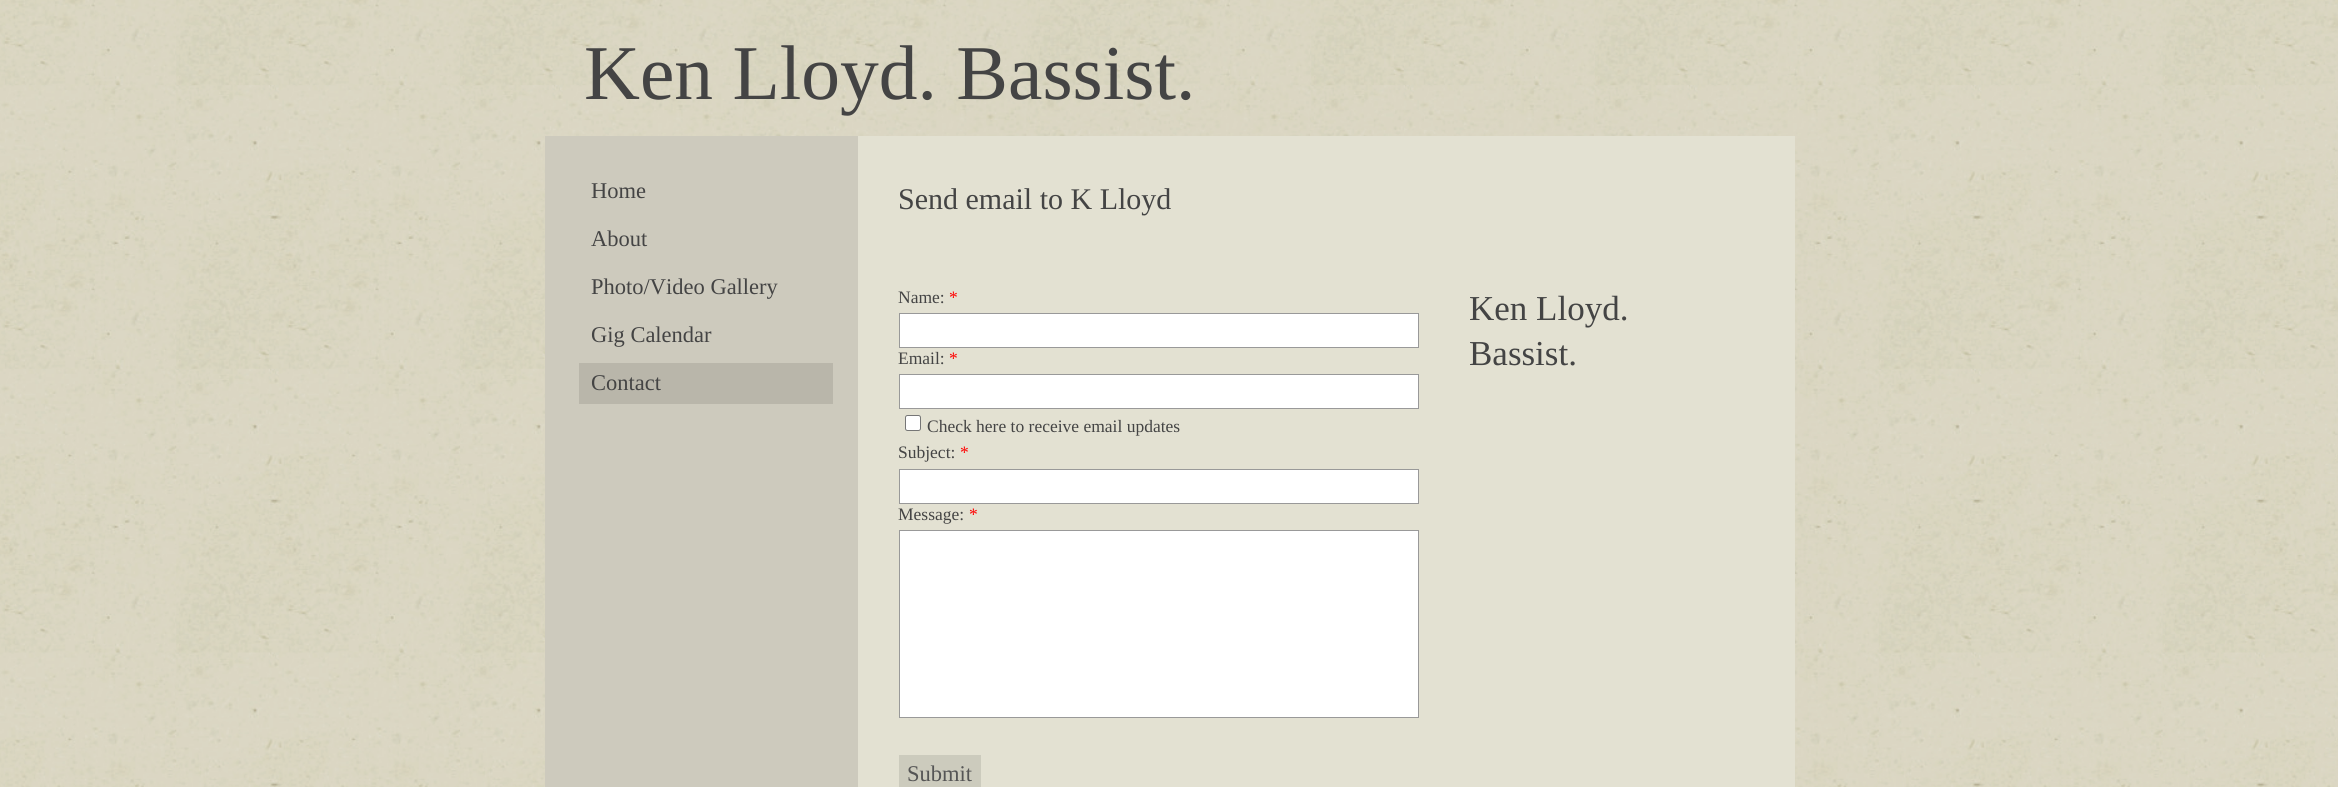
import math
import cairo

surface = cairo.ImageSurface(cairo.FORMAT_RGB24, 2338, 787)
ctx = cairo.Context(surface)
options = cairo.FontOptions()
options.set_hint_metrics(cairo.HINT_METRICS_OFF)
options.set_hint_style(cairo.HINT_STYLE_NONE)
ctx.set_font_options(options)
ctx.set_miter_limit(4)


def round_rect(x, y, w, h, r):
    ctx.new_sub_path()
    for i, (u, v) in enumerate([(x + w - r, y + h - r), (x + r, y + h - r), (x + r, y + r), (x + w - r, y + r)]):
        ctx.arc(u, v, r, i * math.pi / 2, (i + 1) * math.pi / 2)
    ctx.close_path()


def picture(path, x, y, w, h):
    ctx.save()
    ctx.set_source_surface(cairo.ImageSurface.create_from_png(path), x, y)
    ctx.rectangle(x, y, w, h)
    ctx.fill()
    ctx.restore()


ctx.set_source_rgb(1, 1, 1)
ctx.paint()
picture("img1.png", 0, 0, 2338, 787)
ctx.set_source_rgb(0.89, 0.882, 0.824)
ctx.rectangle(858, 136, 937, 651)
ctx.fill()
ctx.select_font_face("Liberation Serif")
ctx.set_font_size(77.5)
ctx.set_source_rgb(0.267, 0.267, 0.267)
ctx.move_to(584, 99)
ctx.show_text("Ken Lloyd. Bassist.")
ctx.set_source_rgb(0.804, 0.792, 0.741)
ctx.rectangle(545, 136, 313, 651)
ctx.fill()
ctx.set_font_size(22.5)
ctx.set_source_rgb(0.267, 0.267, 0.267)
ctx.move_to(591, 198)
ctx.show_text("Home")
ctx.move_to(591, 246)
ctx.show_text("About")
ctx.move_to(591, 294)
ctx.show_text("Photo/Video Gallery")
ctx.move_to(591, 342)
ctx.show_text("Gig Calendar")
ctx.set_source_rgb(0.725, 0.714, 0.667)
ctx.rectangle(579, 363, 254, 41)
ctx.fill()
ctx.set_source_rgb(0.267, 0.267, 0.267)
ctx.move_to(591, 390)
ctx.show_text("Contact")
ctx.set_font_size(30)
ctx.move_to(898, 209)
ctx.show_text("Send email to K Lloyd")
ctx.set_font_size(17.5)
ctx.move_to(898, 303)
ctx.show_text("Name:")
ctx.set_source_rgb(1, 0, 0)
ctx.move_to(949, 303)
ctx.show_text("*")
ctx.set_source_rgb(1, 1, 1)
ctx.rectangle(899.5, 313.5, 519, 34)
ctx.fill_preserve()
ctx.set_source_rgb(0.6, 0.6, 0.6)
ctx.set_line_width(1)
ctx.stroke()
ctx.set_source_rgb(0.267, 0.267, 0.267)
ctx.move_to(898, 364)
ctx.show_text("Email:")
ctx.set_source_rgb(1, 0, 0)
ctx.move_to(949, 364)
ctx.show_text("*")
ctx.set_source_rgb(1, 1, 1)
ctx.rectangle(899.5, 374.5, 519, 34)
ctx.fill_preserve()
ctx.set_source_rgb(0.6, 0.6, 0.6)
ctx.stroke()
ctx.set_source_rgb(1, 1, 1)
round_rect(905.5, 415.5, 15, 15, 2)
ctx.fill_preserve()
ctx.set_source_rgb(0.463, 0.463, 0.463)
ctx.stroke()
ctx.set_source_rgb(0.267, 0.267, 0.267)
ctx.move_to(927, 432)
ctx.show_text("Check here to receive email updates")
ctx.move_to(898, 458)
ctx.show_text("Subject:")
ctx.set_source_rgb(1, 0, 0)
ctx.move_to(960, 458)
ctx.show_text("*")
ctx.set_source_rgb(1, 1, 1)
ctx.rectangle(899.5, 469.5, 519, 34)
ctx.fill_preserve()
ctx.set_source_rgb(0.6, 0.6, 0.6)
ctx.stroke()
ctx.set_source_rgb(0.267, 0.267, 0.267)
ctx.move_to(898, 520)
ctx.show_text("Message:")
ctx.set_source_rgb(1, 0, 0)
ctx.move_to(969, 520)
ctx.show_text("*")
ctx.set_source_rgb(1, 1, 1)
ctx.rectangle(899.5, 530.5, 519, 187)
ctx.fill_preserve()
ctx.set_source_rgb(0.6, 0.6, 0.6)
ctx.stroke()
ctx.set_source_rgb(0.8, 0.796, 0.741)
ctx.rectangle(899, 755, 82, 32)
ctx.fill()
ctx.set_font_size(22.5)
ctx.set_source_rgb(0.333, 0.333, 0.333)
ctx.move_to(907, 781)
ctx.show_text("Submit")
ctx.set_font_size(35)
ctx.set_source_rgb(0.267, 0.267, 0.267)
ctx.move_to(1469, 320)
ctx.show_text("Ken Lloyd.")
ctx.move_to(1469, 365)
ctx.show_text("Bassist.")
surface.write_to_png("page.png")
